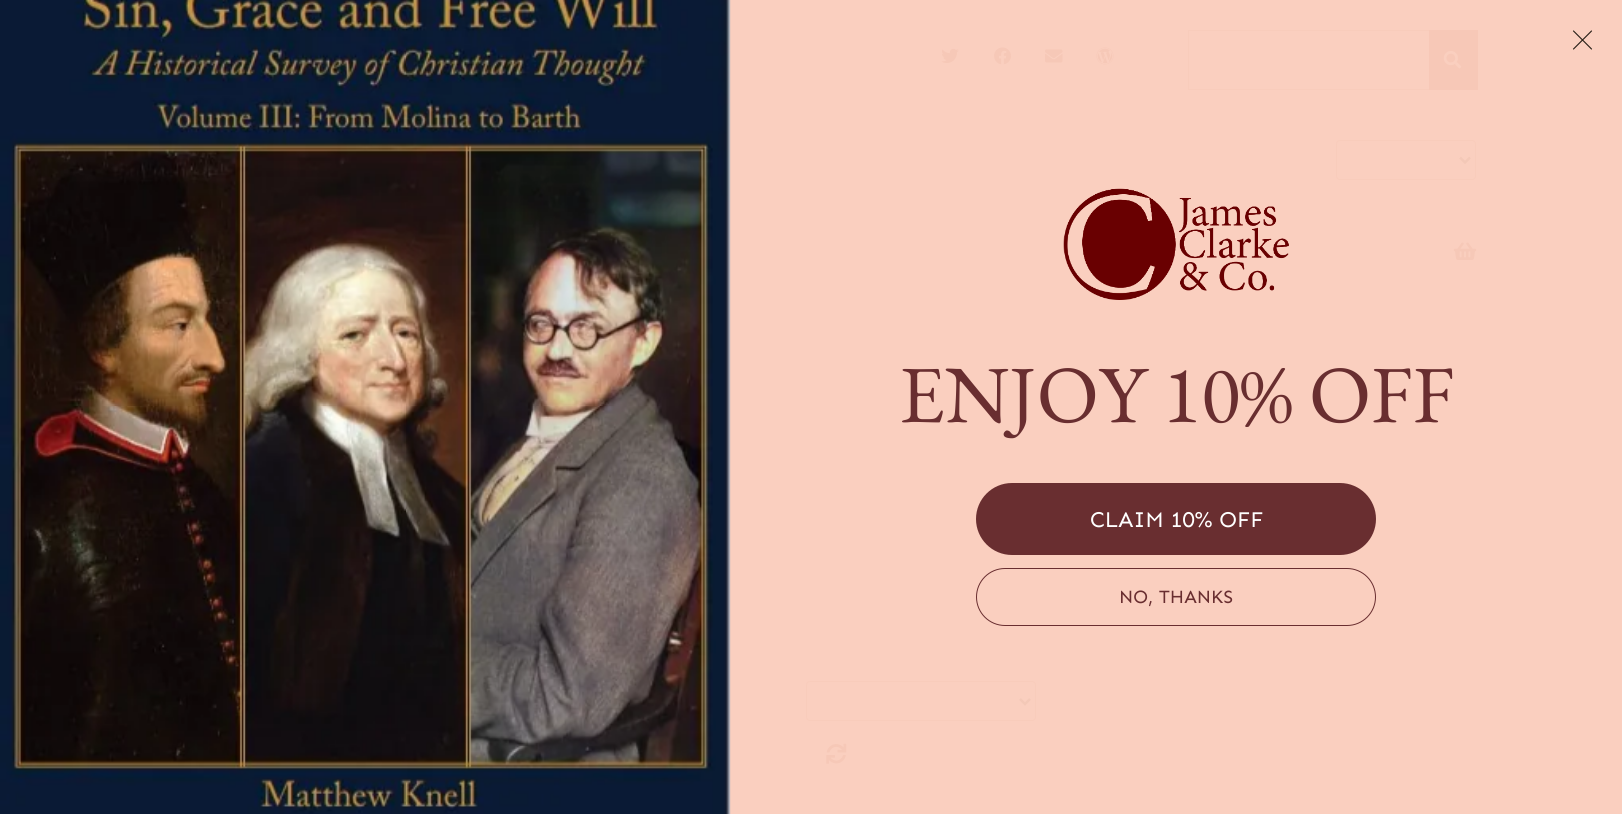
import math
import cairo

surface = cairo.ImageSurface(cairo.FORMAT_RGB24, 1622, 814)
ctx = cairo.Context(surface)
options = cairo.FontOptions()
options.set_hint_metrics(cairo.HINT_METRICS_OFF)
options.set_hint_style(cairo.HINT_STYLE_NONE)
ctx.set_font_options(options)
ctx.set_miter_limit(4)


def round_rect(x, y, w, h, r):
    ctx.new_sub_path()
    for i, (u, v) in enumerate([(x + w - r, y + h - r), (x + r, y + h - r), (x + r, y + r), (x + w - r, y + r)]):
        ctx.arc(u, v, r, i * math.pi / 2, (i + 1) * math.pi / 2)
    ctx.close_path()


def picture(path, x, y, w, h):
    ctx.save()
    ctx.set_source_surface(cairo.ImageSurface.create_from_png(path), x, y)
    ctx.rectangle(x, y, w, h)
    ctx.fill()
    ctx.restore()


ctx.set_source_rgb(0.98, 0.812, 0.749)
ctx.paint()
picture("img1.png", 941, 48, 18, 16)
picture("img2.png", 994, 47, 17, 18)
picture("img3.png", 1045, 49, 18, 14)
picture("img4.png", 1096, 47, 18, 18)
ctx.rectangle(1188.5, 30.5, 287, 59)
ctx.set_source_rgb(0.969, 0.8, 0.733)
ctx.set_line_width(1)
ctx.stroke()
ctx.set_source_rgb(0.965, 0.784, 0.718)
ctx.rectangle(1429, 30, 49, 60)
ctx.fill()
picture("img5.png", 1443, 50, 19, 19)
round_rect(1336.5, 140.5, 139, 39, 3.5)
ctx.set_source_rgb(0.969, 0.8, 0.733)
ctx.stroke()
ctx.new_path()
ctx.move_to(1460, 157.5)
ctx.line_to(1465, 162.5)
ctx.line_to(1470, 157.5)
ctx.set_source_rgb(0.953, 0.784, 0.718)
ctx.set_line_width(2.5)
ctx.stroke()
picture("img6.png", 1453, 242, 24, 18)
round_rect(806.5, 681.5, 229, 39, 3.5)
ctx.set_source_rgb(0.969, 0.8, 0.733)
ctx.set_line_width(1)
ctx.stroke()
ctx.new_path()
ctx.move_to(1020, 699)
ctx.line_to(1025, 704)
ctx.line_to(1030, 699)
ctx.set_source_rgb(0.953, 0.784, 0.718)
ctx.set_line_width(2.5)
ctx.stroke()
picture("img7.png", 826, 743, 21, 21)
picture("img8.png", 0, 0, 731, 814)
ctx.new_path()
ctx.move_to(1573.5, 31)
ctx.line_to(1591.5, 49)
ctx.move_to(1591.5, 31)
ctx.line_to(1573.5, 49)
ctx.set_source_rgb(0.141, 0.11, 0.082)
ctx.set_line_width(1.1)
ctx.set_line_cap(cairo.LINE_CAP_ROUND)
ctx.stroke()
picture("img9.png", 1063, 188, 226, 112)
ctx.select_font_face("EB Garamond")
ctx.set_font_size(81.25)
ctx.set_source_rgb(0.412, 0.18, 0.188)
ctx.move_to(899, 422)
ctx.show_text("ENJOY 10% OFF")
round_rect(976, 483, 400, 72, 36)
ctx.fill()
ctx.select_font_face("Sen")
ctx.set_font_size(22.5)
ctx.set_source_rgb(1, 1, 1)
ctx.move_to(1090, 527)
ctx.show_text("CLAIM 10% OFF")
round_rect(976.5, 568.5, 399, 57, 28.5)
ctx.set_source_rgb(0.412, 0.18, 0.188)
ctx.set_line_width(1)
ctx.set_line_cap(cairo.LINE_CAP_BUTT)
ctx.stroke()
ctx.set_font_size(18.75)
ctx.move_to(1119, 603)
ctx.show_text("NO, THANKS")
surface.write_to_png("page.png")
